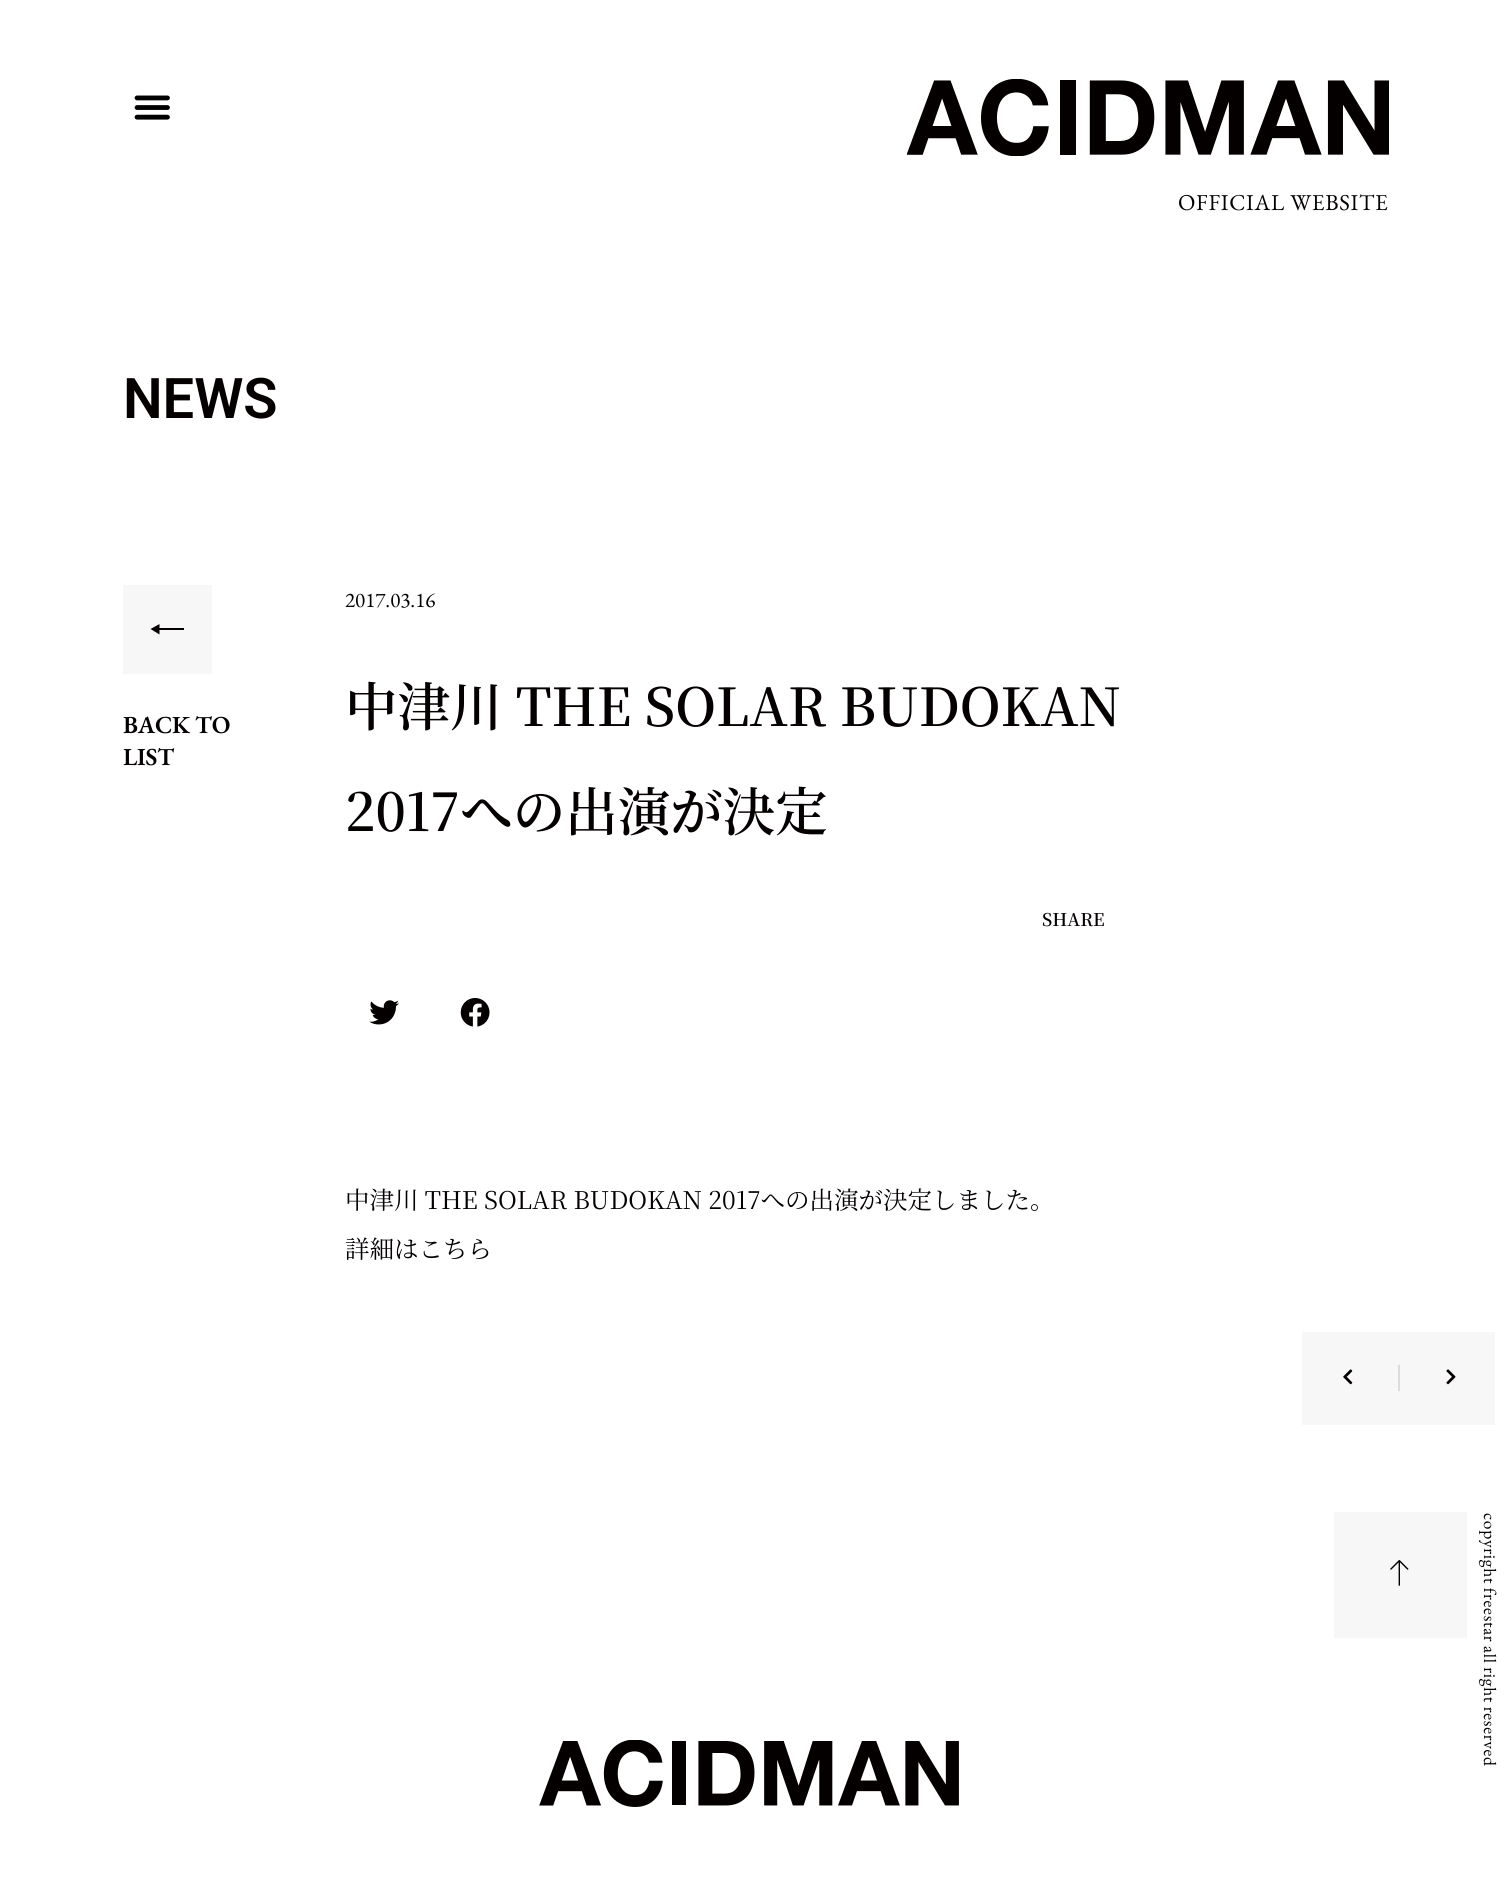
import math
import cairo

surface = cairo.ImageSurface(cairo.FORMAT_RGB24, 1512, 1895)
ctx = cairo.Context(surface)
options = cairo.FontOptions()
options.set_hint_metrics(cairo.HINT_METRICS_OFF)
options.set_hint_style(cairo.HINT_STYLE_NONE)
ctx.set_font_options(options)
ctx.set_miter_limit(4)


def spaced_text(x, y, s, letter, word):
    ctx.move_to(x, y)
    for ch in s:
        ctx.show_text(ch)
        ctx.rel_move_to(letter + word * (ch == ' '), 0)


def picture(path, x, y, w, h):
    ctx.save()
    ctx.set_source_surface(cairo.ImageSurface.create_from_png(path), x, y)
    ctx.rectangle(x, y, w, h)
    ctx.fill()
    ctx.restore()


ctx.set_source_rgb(1, 1, 1)
ctx.paint()
picture("img1.png", 134, 95, 36, 25)
picture("img2.png", 907, 79, 482, 77)
ctx.select_font_face("EB Garamond")
ctx.set_font_size(22.75)
ctx.set_source_rgb(0.016, 0, 0)
spaced_text(1178, 210, "OFFICIAL WEBSITE", 0.7, 0)
ctx.select_font_face("Roboto SemiBold")
ctx.set_font_size(56)
ctx.move_to(123, 418)
ctx.show_text("NEWS")
ctx.set_source_rgb(0.965, 0.965, 0.965)
ctx.rectangle(123, 585, 89, 89)
ctx.fill()
ctx.set_source_rgb(0.016, 0, 0)
ctx.new_path()
ctx.move_to(150.5, 629)
ctx.line_to(159.5, 634.5)
ctx.line_to(159.5, 624)
ctx.close_path()
ctx.move_to(184, 628)
ctx.line_to(159, 628)
ctx.line_to(159, 630)
ctx.line_to(184, 630)
ctx.close_path()
ctx.fill()
ctx.select_font_face("EB Garamond SemiBold")
ctx.set_font_size(24.5)
spaced_text(123, 733, "BACK TO", -0.25, 0)
spaced_text(123, 765, "LIST", -0.25, 0)
ctx.select_font_face("EB Garamond")
ctx.set_font_size(21)
ctx.move_to(345, 607)
ctx.show_text("2017.03.16")
ctx.select_font_face("Noto Serif JP SemiBold")
ctx.set_font_size(52.5)
ctx.move_to(345, 726)
ctx.show_text("中津川 THE SOLAR BUDOKAN")
ctx.move_to(345, 831)
ctx.show_text("2017への出演が決定")
ctx.set_font_size(17.5)
ctx.move_to(1042, 926)
ctx.show_text("SHARE")
picture("img3.png", 369, 1000, 30, 25)
picture("img4.png", 460, 998, 30, 29)
ctx.select_font_face("Noto Serif JP")
ctx.set_font_size(24.5)
ctx.move_to(345, 1209)
ctx.show_text("中津川 THE SOLAR BUDOKAN 2017への出演が決定しました。")
ctx.move_to(345, 1258)
ctx.show_text("詳細はこちら")
ctx.set_source_rgb(0.965, 0.965, 0.965)
ctx.rectangle(1302, 1332, 193, 93)
ctx.fill()
picture("img5.png", 1343, 1369, 10, 16)
ctx.set_source_rgb(0.863, 0.863, 0.863)
ctx.rectangle(1398, 1365, 2, 26)
ctx.fill()
picture("img6.png", 1446, 1369, 10, 16)
picture("img7.png", 539, 1740, 420, 67)
ctx.set_source_rgb(0.965, 0.965, 0.965)
ctx.rectangle(1334, 1512, 133, 126)
ctx.fill()
picture("img8.png", 1390, 1560, 19, 26)
ctx.select_font_face("EB Garamond")
ctx.set_font_size(17.5)
ctx.set_source_rgb(0.016, 0, 0)
ctx.save()
ctx.translate(1484, 1513)
ctx.rotate(90 * math.pi / 180)
spaced_text(0, 0, "copyright freestar all right reserved", 0.7, -0.5)
ctx.restore()
surface.write_to_png("page.png")
